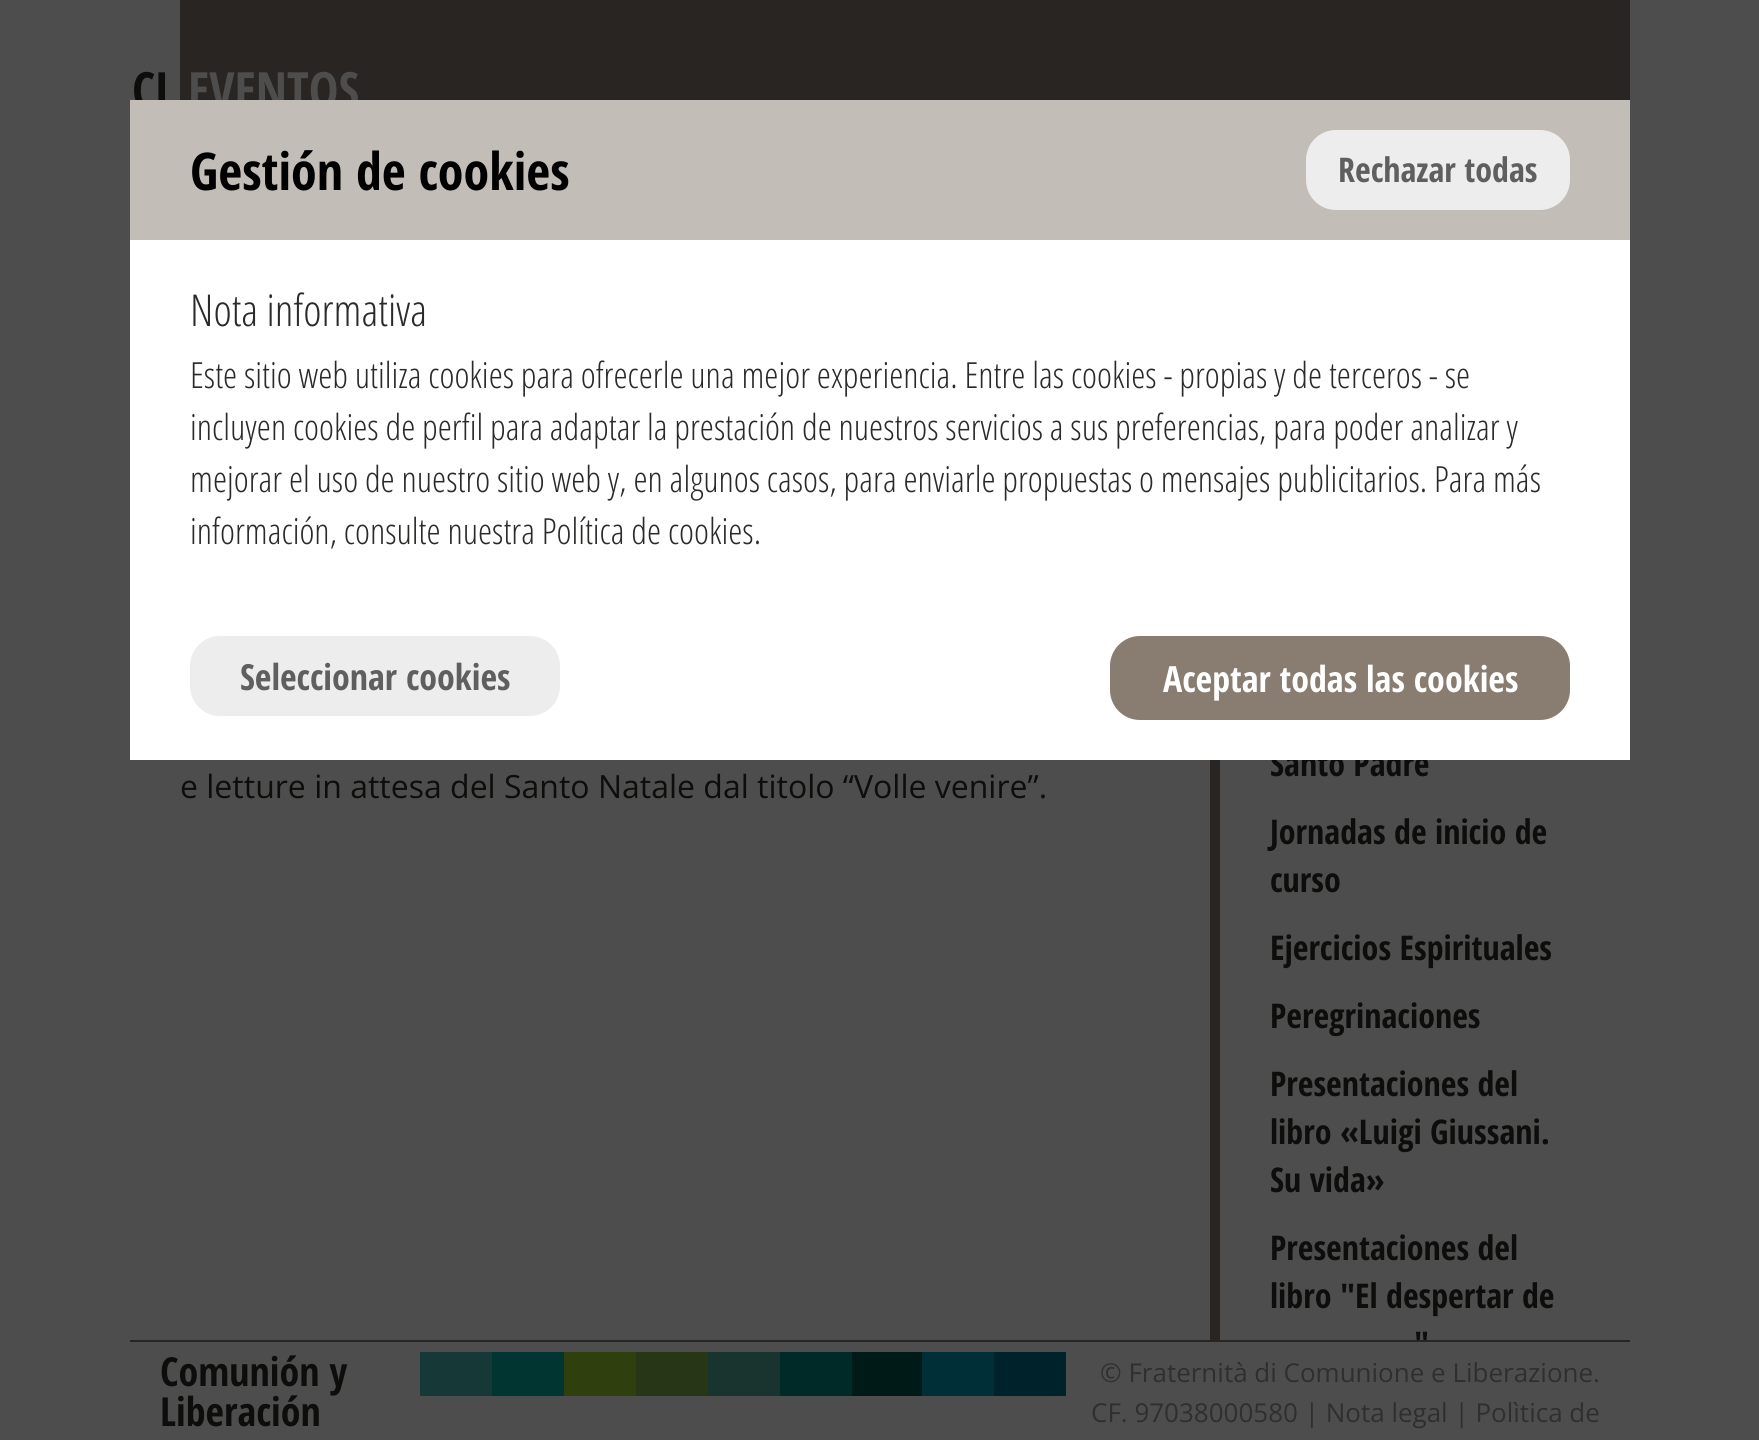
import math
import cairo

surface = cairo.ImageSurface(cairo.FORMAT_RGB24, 1759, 1440)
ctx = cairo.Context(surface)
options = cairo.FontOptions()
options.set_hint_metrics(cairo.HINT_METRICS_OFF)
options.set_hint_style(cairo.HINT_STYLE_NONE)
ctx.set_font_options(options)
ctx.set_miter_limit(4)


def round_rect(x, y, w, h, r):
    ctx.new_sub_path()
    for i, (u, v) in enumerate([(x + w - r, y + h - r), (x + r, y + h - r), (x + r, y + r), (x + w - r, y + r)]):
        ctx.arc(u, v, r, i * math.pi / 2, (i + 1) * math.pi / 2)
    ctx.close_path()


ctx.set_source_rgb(0.302, 0.302, 0.302)
ctx.paint()
ctx.set_source_rgb(0.161, 0.145, 0.133)
ctx.rectangle(180, 0, 1450, 100)
ctx.fill()
ctx.select_font_face("Open Sans Condensed", cairo.FONT_SLANT_NORMAL, cairo.FONT_WEIGHT_BOLD)
ctx.set_font_size(50)
ctx.set_source_rgb(0.051, 0.051, 0.047)
ctx.move_to(132, 108)
ctx.show_text("CL")
ctx.set_source_rgb(0.302, 0.302, 0.302)
ctx.move_to(188, 108)
ctx.show_text("EVENTOS")
ctx.set_font_size(34)
ctx.set_source_rgb(0.051, 0.051, 0.047)
ctx.move_to(1270, 776)
ctx.show_text("Santo Padre")
ctx.set_source_rgb(1, 1, 1)
ctx.rectangle(130, 240, 1500, 520)
ctx.fill()
ctx.set_source_rgb(0.765, 0.741, 0.718)
ctx.rectangle(130, 100, 1500, 140)
ctx.fill()
ctx.set_font_size(52)
ctx.set_source_rgb(0, 0, 0)
ctx.move_to(190, 190)
ctx.show_text("Gestión de cookies")
ctx.set_source_rgb(0.929, 0.929, 0.929)
round_rect(1307, 131, 262, 78, 29)
ctx.fill_preserve()
ctx.stroke()
ctx.set_font_size(34)
ctx.set_source_rgb(0.373, 0.373, 0.373)
ctx.move_to(1338, 182)
ctx.show_text("Rechazar todas")
ctx.select_font_face("Open Sans Condensed Light")
ctx.set_font_size(44)
ctx.set_source_rgb(0.169, 0.165, 0.161)
ctx.move_to(190, 326)
ctx.show_text("Nota informativa")
ctx.set_font_size(36)
ctx.move_to(190, 388)
ctx.show_text("Este sitio web utiliza cookies para ofrecerle una mejor experiencia. Entre las cookies - propias y de terceros - se")
ctx.move_to(190, 440)
ctx.show_text("incluyen cookies de perfil para adaptar la prestación de nuestros servicios a sus preferencias, para poder analizar y")
ctx.move_to(190, 492)
ctx.show_text("mejorar el uso de nuestro sitio web y, en algunos casos, para enviarle propuestas o mensajes publicitarios. Para más")
ctx.move_to(190, 544)
ctx.show_text("información, consulte nuestra Política de cookies.")
ctx.set_source_rgb(0.929, 0.929, 0.929)
round_rect(190, 636, 370, 80, 30)
ctx.fill()
ctx.select_font_face("Open Sans Condensed", cairo.FONT_SLANT_NORMAL, cairo.FONT_WEIGHT_BOLD)
ctx.set_source_rgb(0.373, 0.373, 0.373)
ctx.move_to(240, 690)
ctx.show_text("Seleccionar cookies")
ctx.set_source_rgb(0.537, 0.486, 0.439)
round_rect(1111, 637, 458, 82, 29)
ctx.fill_preserve()
ctx.stroke()
ctx.set_source_rgb(1, 1, 1)
ctx.move_to(1163, 692)
ctx.show_text("Aceptar todas las cookies")
ctx.select_font_face("Open Sans")
ctx.set_font_size(32)
ctx.set_source_rgb(0.051, 0.051, 0.047)
ctx.move_to(180, 798)
ctx.show_text("e letture in attesa del Santo Natale dal titolo “Volle venire”.")
ctx.set_source_rgb(0.161, 0.145, 0.133)
ctx.rectangle(1210, 760, 10, 580)
ctx.fill()
ctx.select_font_face("Open Sans Condensed", cairo.FONT_SLANT_NORMAL, cairo.FONT_WEIGHT_BOLD)
ctx.set_font_size(34)
ctx.set_source_rgb(0.051, 0.051, 0.047)
ctx.move_to(1270, 844)
ctx.show_text("Jornadas de inicio de")
ctx.move_to(1270, 892)
ctx.show_text("curso")
ctx.move_to(1270, 960)
ctx.show_text("Ejercicios Espirituales")
ctx.move_to(1270, 1028)
ctx.show_text("Peregrinaciones")
ctx.move_to(1270, 1096)
ctx.show_text("Presentaciones del")
ctx.move_to(1270, 1144)
ctx.show_text("libro «Luigi Giussani.")
ctx.move_to(1270, 1192)
ctx.show_text("Su vida»")
ctx.move_to(1270, 1260)
ctx.show_text("Presentaciones del")
ctx.move_to(1270, 1308)
ctx.show_text("libro \"El despertar de")
ctx.move_to(1414, 1356)
ctx.show_text("\"")
ctx.set_source_rgb(0.302, 0.302, 0.302)
ctx.rectangle(1416, 1340, 11, 1)
ctx.fill()
ctx.set_source_rgb(0.161, 0.145, 0.133)
ctx.rectangle(130, 1340, 1500, 2)
ctx.fill()
ctx.set_font_size(40)
ctx.set_source_rgb(0.051, 0.051, 0.047)
ctx.move_to(160, 1386)
ctx.show_text("Comunión y")
ctx.move_to(160, 1426)
ctx.show_text("Liberación")
ctx.set_source_rgb(0.086, 0.224, 0.216)
ctx.rectangle(420, 1352, 72, 44)
ctx.fill()
ctx.set_source_rgb(0, 0.208, 0.196)
ctx.rectangle(492, 1352, 72, 44)
ctx.fill()
ctx.set_source_rgb(0.184, 0.247, 0.055)
ctx.rectangle(564, 1352, 72, 44)
ctx.fill()
ctx.set_source_rgb(0.149, 0.212, 0.09)
ctx.rectangle(636, 1352, 72, 44)
ctx.fill()
ctx.set_source_rgb(0.098, 0.2, 0.184)
ctx.rectangle(708, 1352, 72, 44)
ctx.fill()
ctx.set_source_rgb(0, 0.165, 0.153)
ctx.rectangle(780, 1352, 72, 44)
ctx.fill()
ctx.set_source_rgb(0, 0.106, 0.09)
ctx.rectangle(852, 1352, 70, 44)
ctx.fill()
ctx.set_source_rgb(0, 0.184, 0.216)
ctx.rectangle(922, 1352, 72, 44)
ctx.fill()
ctx.set_source_rgb(0, 0.133, 0.165)
ctx.rectangle(994, 1352, 72, 44)
ctx.fill()
ctx.select_font_face("Open Sans")
ctx.set_font_size(26)
ctx.set_source_rgb(0.184, 0.184, 0.184)
ctx.move_to(1100, 1382)
ctx.show_text("© Fraternità di Comunione e Liberazione.")
ctx.move_to(1091, 1422)
ctx.show_text("CF. 97038000580 | Nota legal | Polìtica de")
surface.write_to_png("page.png")
